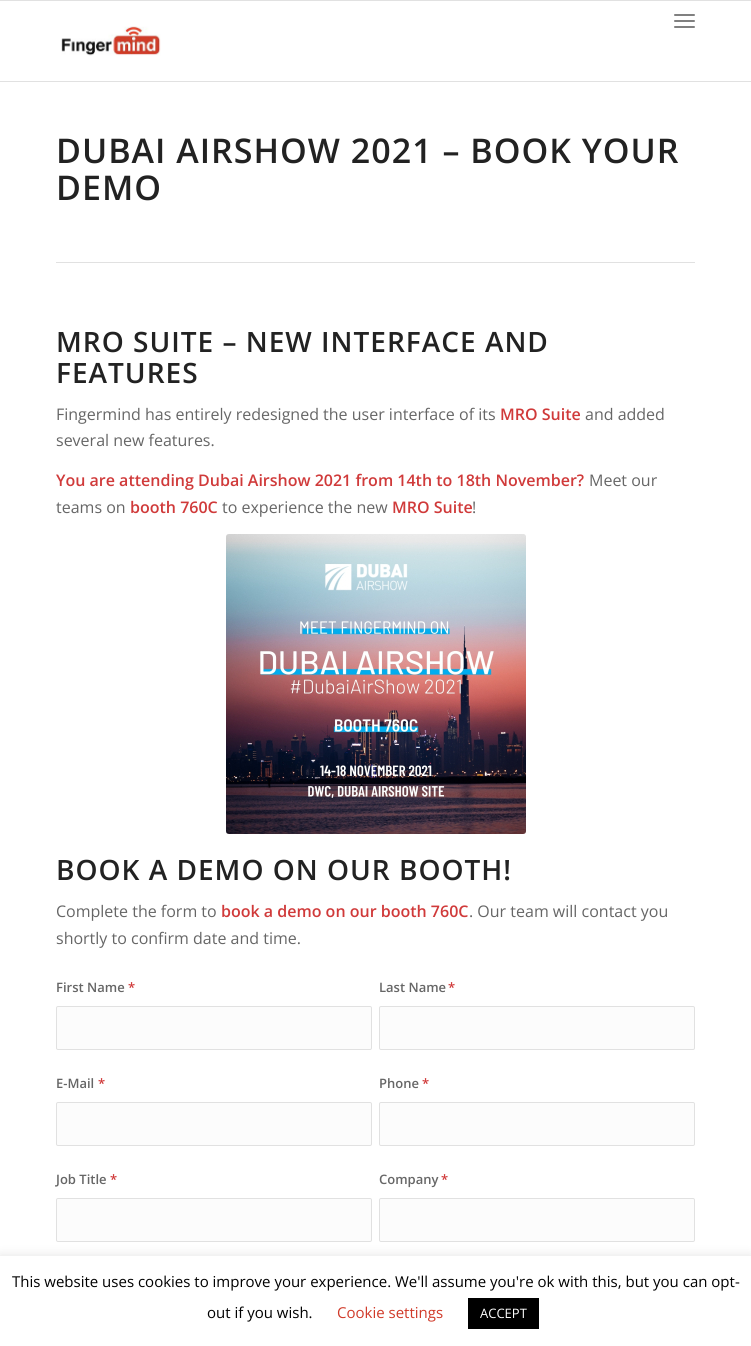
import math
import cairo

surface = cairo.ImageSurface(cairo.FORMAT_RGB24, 751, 1346)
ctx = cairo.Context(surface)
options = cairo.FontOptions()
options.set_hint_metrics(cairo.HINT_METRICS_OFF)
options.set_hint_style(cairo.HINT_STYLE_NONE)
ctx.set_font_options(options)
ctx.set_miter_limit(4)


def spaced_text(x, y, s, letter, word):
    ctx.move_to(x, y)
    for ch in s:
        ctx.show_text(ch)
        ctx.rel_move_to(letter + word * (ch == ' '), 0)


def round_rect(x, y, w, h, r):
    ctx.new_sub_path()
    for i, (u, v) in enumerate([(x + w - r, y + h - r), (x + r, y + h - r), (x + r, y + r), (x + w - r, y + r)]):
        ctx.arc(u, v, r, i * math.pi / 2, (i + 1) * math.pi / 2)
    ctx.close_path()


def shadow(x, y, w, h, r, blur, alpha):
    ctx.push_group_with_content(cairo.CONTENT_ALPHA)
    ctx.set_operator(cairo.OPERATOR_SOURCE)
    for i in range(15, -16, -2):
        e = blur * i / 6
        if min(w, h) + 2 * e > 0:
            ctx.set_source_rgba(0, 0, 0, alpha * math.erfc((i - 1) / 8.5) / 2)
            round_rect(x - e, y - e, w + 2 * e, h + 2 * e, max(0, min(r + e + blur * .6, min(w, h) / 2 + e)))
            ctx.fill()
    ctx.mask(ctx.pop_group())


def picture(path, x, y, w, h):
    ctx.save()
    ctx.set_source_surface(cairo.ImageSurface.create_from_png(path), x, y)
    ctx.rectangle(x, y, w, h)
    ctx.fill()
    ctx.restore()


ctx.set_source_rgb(1, 1, 1)
ctx.paint()
ctx.set_source_rgb(0.882, 0.882, 0.882)
ctx.rectangle(0, 0, 751, 1)
ctx.fill()
ctx.rectangle(0, 81, 751, 1)
ctx.fill()
ctx.set_source_rgb(0.502, 0.502, 0.502)
round_rect(674, 20, 21, 2, 1)
ctx.fill()
round_rect(674, 14, 21, 2, 1)
ctx.fill()
round_rect(674, 26, 21, 2, 1)
ctx.fill()
picture("img1.png", 61, 26, 100, 30)
ctx.select_font_face("Open Sans SemiBold")
ctx.set_font_size(34)
ctx.set_source_rgb(0.133, 0.133, 0.133)
spaced_text(56, 163, "DUBAI AIRSHOW 2021 – BOOK YOUR", 1, 0)
spaced_text(56, 200, "DEMO", 1, 0)
ctx.set_source_rgb(0.882, 0.882, 0.882)
ctx.rectangle(56, 262, 639, 1)
ctx.fill()
ctx.set_font_size(28)
ctx.set_source_rgb(0.133, 0.133, 0.133)
spaced_text(56, 352, "MRO SUITE – NEW INTERFACE AND", 1, 0)
spaced_text(56, 383, "FEATURES", 1, 0)
ctx.select_font_face("Open Sans")
ctx.set_font_size(16)
ctx.set_source_rgb(0.4, 0.4, 0.4)
ctx.move_to(56, 420)
ctx.show_text("Fingermind has entirely redesigned the user interface of its")
ctx.select_font_face("Open Sans SemiBold")
ctx.set_source_rgb(0.816, 0.227, 0.227)
ctx.move_to(500, 420)
ctx.show_text("MRO Suite")
ctx.select_font_face("Open Sans")
ctx.set_source_rgb(0.4, 0.4, 0.4)
ctx.move_to(585, 420)
ctx.show_text("and added")
ctx.move_to(56, 446)
ctx.show_text("several new features.")
ctx.select_font_face("Open Sans SemiBold")
ctx.set_source_rgb(0.816, 0.227, 0.227)
ctx.move_to(56, 486)
ctx.show_text("You are attending Dubai Airshow 2021 from 14th to 18th November?")
ctx.select_font_face("Open Sans")
ctx.set_source_rgb(0.4, 0.4, 0.4)
ctx.move_to(589, 486)
ctx.show_text("Meet our")
ctx.move_to(56, 513)
ctx.show_text("teams on")
ctx.select_font_face("Open Sans SemiBold")
ctx.set_source_rgb(0.816, 0.227, 0.227)
ctx.move_to(130, 513)
ctx.show_text("booth 760C")
ctx.select_font_face("Open Sans")
ctx.set_source_rgb(0.4, 0.4, 0.4)
ctx.move_to(222, 513)
ctx.show_text("to experience the new")
ctx.select_font_face("Open Sans SemiBold")
ctx.set_source_rgb(0.816, 0.227, 0.227)
ctx.move_to(392, 513)
ctx.show_text("MRO Suite")
ctx.select_font_face("Open Sans")
ctx.set_source_rgb(0.4, 0.4, 0.4)
ctx.move_to(472, 513)
ctx.show_text("!")
picture("img2.png", 226, 534, 300, 300)
ctx.select_font_face("Open Sans SemiBold")
ctx.set_font_size(28)
ctx.set_source_rgb(0.133, 0.133, 0.133)
spaced_text(56, 880, "BOOK A DEMO ON OUR BOOTH!", 1, 0)
ctx.select_font_face("Open Sans")
ctx.set_font_size(16)
ctx.set_source_rgb(0.4, 0.4, 0.4)
ctx.move_to(56, 917)
ctx.show_text("Complete the form to")
ctx.select_font_face("Open Sans SemiBold")
ctx.set_source_rgb(0.816, 0.227, 0.227)
ctx.move_to(221, 917)
ctx.show_text("book a demo on our booth 760C")
ctx.select_font_face("Open Sans")
ctx.set_source_rgb(0.4, 0.4, 0.4)
ctx.move_to(469, 917)
ctx.show_text(". Our team will contact you")
ctx.move_to(56, 944)
ctx.show_text("shortly to confirm date and time.")
ctx.select_font_face("Open Sans SemiBold")
ctx.set_font_size(13)
ctx.move_to(56, 992)
ctx.show_text("First Name")
ctx.set_source_rgb(0.816, 0.227, 0.227)
ctx.move_to(128, 992)
ctx.show_text("*")
ctx.set_source_rgb(0.988, 0.988, 0.988)
round_rect(56.5, 1006.5, 315, 43, 1.5)
ctx.fill_preserve()
ctx.set_source_rgb(0.882, 0.882, 0.882)
ctx.set_line_width(1)
ctx.stroke()
ctx.set_source_rgb(0.4, 0.4, 0.4)
ctx.move_to(379, 992)
ctx.show_text("Last Name")
ctx.set_source_rgb(0.816, 0.227, 0.227)
ctx.move_to(448, 992)
ctx.show_text("*")
ctx.set_source_rgb(0.988, 0.988, 0.988)
round_rect(379.5, 1006.5, 315, 43, 1.5)
ctx.fill_preserve()
ctx.set_source_rgb(0.882, 0.882, 0.882)
ctx.stroke()
ctx.set_source_rgb(0.4, 0.4, 0.4)
ctx.move_to(56, 1088)
ctx.show_text("E-Mail")
ctx.set_source_rgb(0.816, 0.227, 0.227)
ctx.move_to(98, 1088)
ctx.show_text("*")
ctx.set_source_rgb(0.988, 0.988, 0.988)
round_rect(56.5, 1102.5, 315, 43, 1.5)
ctx.fill_preserve()
ctx.set_source_rgb(0.882, 0.882, 0.882)
ctx.stroke()
ctx.set_source_rgb(0.4, 0.4, 0.4)
ctx.move_to(379, 1088)
ctx.show_text("Phone")
ctx.set_source_rgb(0.816, 0.227, 0.227)
ctx.move_to(422, 1088)
ctx.show_text("*")
ctx.set_source_rgb(0.988, 0.988, 0.988)
round_rect(379.5, 1102.5, 315, 43, 1.5)
ctx.fill_preserve()
ctx.set_source_rgb(0.882, 0.882, 0.882)
ctx.stroke()
ctx.set_source_rgb(0.4, 0.4, 0.4)
ctx.move_to(56, 1184)
ctx.show_text("Job Title")
ctx.set_source_rgb(0.816, 0.227, 0.227)
ctx.move_to(110, 1184)
ctx.show_text("*")
ctx.set_source_rgb(0.988, 0.988, 0.988)
round_rect(56.5, 1198.5, 315, 43, 1.5)
ctx.fill_preserve()
ctx.set_source_rgb(0.882, 0.882, 0.882)
ctx.stroke()
ctx.set_source_rgb(0.4, 0.4, 0.4)
ctx.move_to(379, 1184)
ctx.show_text("Company")
ctx.set_source_rgb(0.816, 0.227, 0.227)
ctx.move_to(441, 1184)
ctx.show_text("*")
ctx.set_source_rgb(0.988, 0.988, 0.988)
round_rect(379.5, 1198.5, 315, 43, 1.5)
ctx.fill_preserve()
ctx.set_source_rgb(0.882, 0.882, 0.882)
ctx.stroke()
ctx.set_source_rgb(0.675, 0.671, 0.671)
shadow(0, 1255, 751, 90, 0, 5, 0.3)
ctx.set_source_rgb(1, 1, 1)
ctx.rectangle(0, 1256, 751, 90)
ctx.fill()
ctx.select_font_face("Open Sans")
ctx.set_font_size(15)
ctx.set_source_rgb(0, 0, 0)
ctx.move_to(12, 1287)
ctx.show_text("This website uses cookies to improve your experience. We'll assume you're ok with this, but you can opt-")
ctx.move_to(207, 1318)
ctx.show_text("out if you wish.")
ctx.set_source_rgb(0.816, 0.227, 0.161)
ctx.move_to(337, 1318)
ctx.show_text("Cookie settings")
ctx.set_source_rgb(0, 0, 0)
ctx.rectangle(468, 1298, 71, 31)
ctx.fill()
ctx.set_font_size(13)
ctx.set_source_rgb(1, 1, 1)
ctx.move_to(480, 1318)
ctx.show_text("ACCEPT")
surface.write_to_png("page.png")
